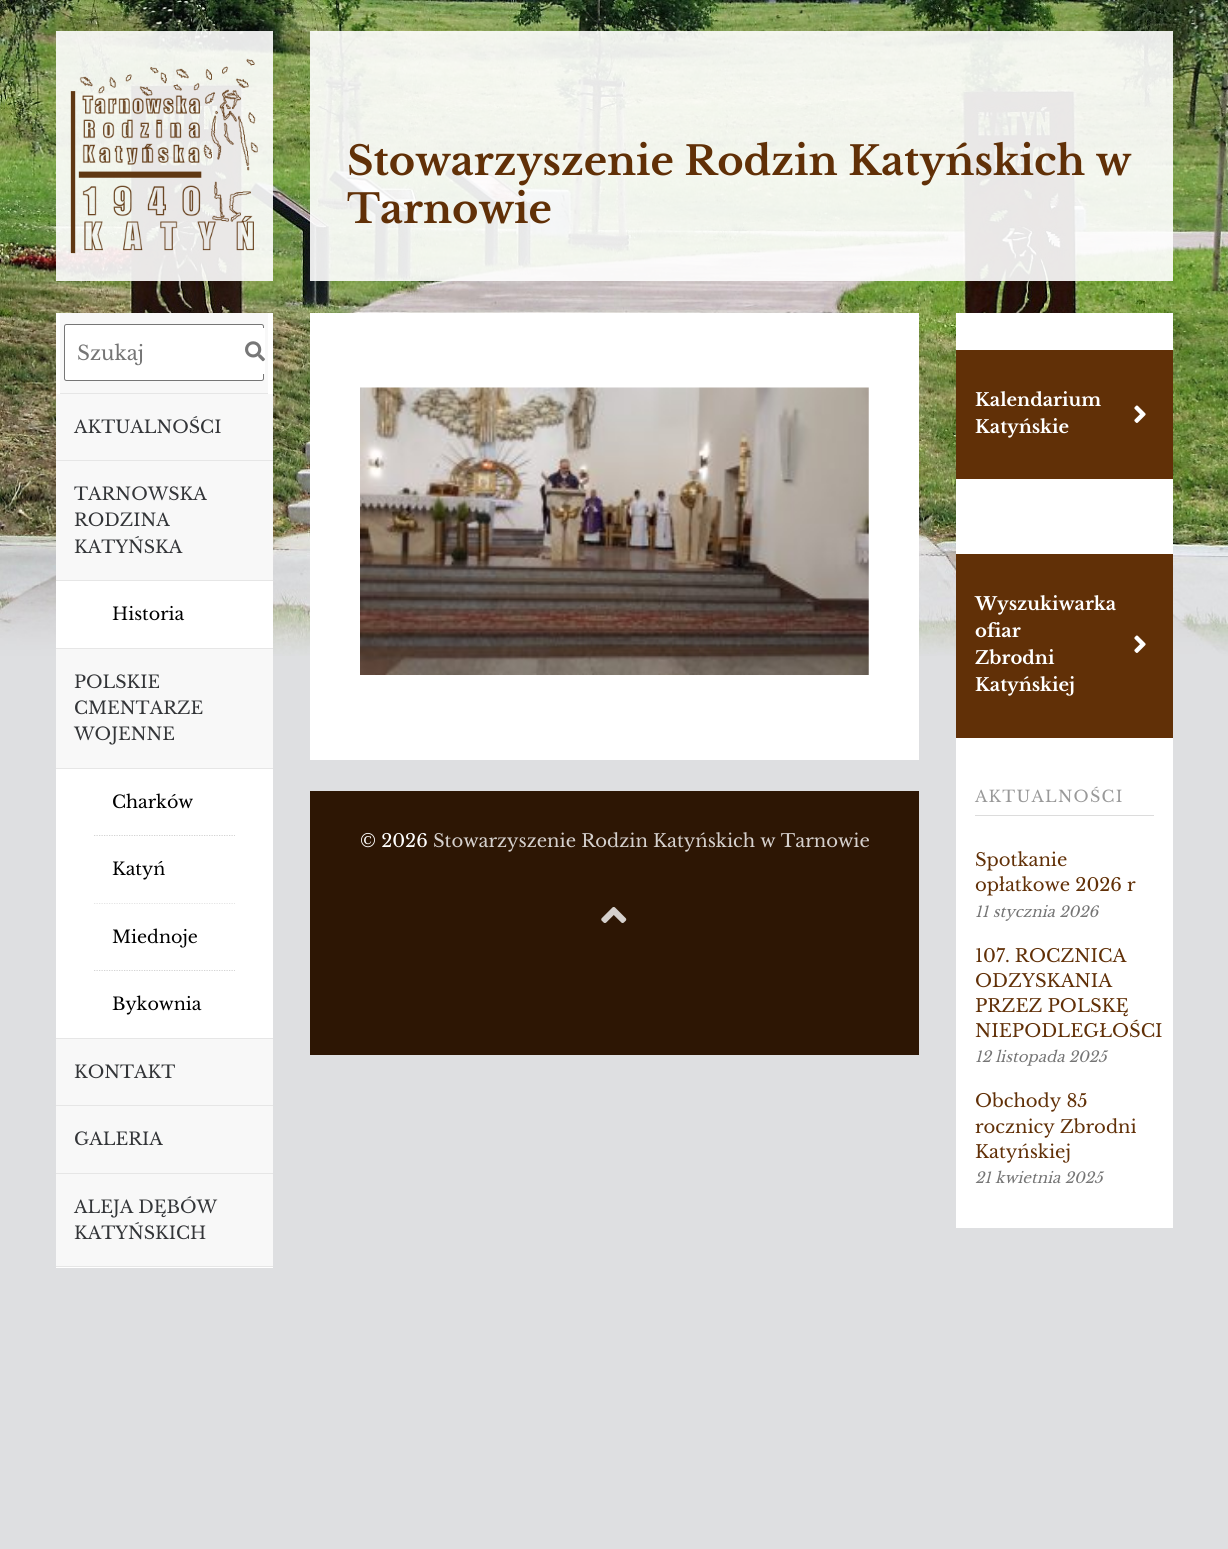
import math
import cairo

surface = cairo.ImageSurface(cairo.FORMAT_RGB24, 1228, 1549)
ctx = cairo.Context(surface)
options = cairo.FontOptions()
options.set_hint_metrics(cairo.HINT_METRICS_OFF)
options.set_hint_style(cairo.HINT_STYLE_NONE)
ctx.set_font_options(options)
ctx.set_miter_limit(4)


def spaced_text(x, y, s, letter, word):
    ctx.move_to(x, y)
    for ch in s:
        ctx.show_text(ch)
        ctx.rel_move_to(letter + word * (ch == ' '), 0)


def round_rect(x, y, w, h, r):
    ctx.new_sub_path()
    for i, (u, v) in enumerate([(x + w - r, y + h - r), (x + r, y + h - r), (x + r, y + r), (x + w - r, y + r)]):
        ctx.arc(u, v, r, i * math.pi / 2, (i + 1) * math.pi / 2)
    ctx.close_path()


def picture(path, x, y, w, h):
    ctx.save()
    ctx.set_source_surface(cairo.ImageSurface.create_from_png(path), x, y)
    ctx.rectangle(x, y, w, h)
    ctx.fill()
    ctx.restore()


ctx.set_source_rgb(0.871, 0.875, 0.882)
ctx.paint()
picture("img1.png", 0, 0, 1228, 656)
ctx.set_source_rgba(1, 1, 1, 0.9)
ctx.rectangle(56, 31, 217, 250)
ctx.fill()
picture("img2.png", 70, 58, 188, 196)
ctx.rectangle(310, 31, 863, 250)
ctx.fill()
ctx.select_font_face("Libre Baskerville", cairo.FONT_SLANT_NORMAL, cairo.FONT_WEIGHT_BOLD)
ctx.set_font_size(40)
ctx.set_source_rgb(0.38, 0.188, 0.031)
ctx.move_to(347, 175)
ctx.show_text("Stowarzyszenie Rodzin Katyńskich w")
ctx.move_to(347, 223)
ctx.show_text("Tarnowie")
ctx.set_source_rgb(1, 1, 1)
ctx.rectangle(56, 313, 217, 955)
ctx.fill()
ctx.set_source_rgb(0.969, 0.969, 0.969)
ctx.rectangle(60, 313, 208, 80)
ctx.fill()
ctx.set_source_rgb(0.902, 0.902, 0.902)
ctx.rectangle(60, 393, 208, 1)
ctx.fill()
ctx.set_source_rgb(1, 1, 1)
round_rect(64.5, 324.5, 199, 56, 2)
ctx.fill_preserve()
ctx.set_source_rgb(0.463, 0.463, 0.463)
ctx.set_line_width(1)
ctx.stroke()
ctx.select_font_face("Libre Baskerville")
ctx.set_font_size(20)
ctx.set_source_rgb(0.459, 0.459, 0.459)
ctx.move_to(77, 360)
ctx.show_text("Szukaj")
ctx.set_source_rgb(1, 1, 1)
ctx.rectangle(263, 328, 2, 46)
ctx.fill()
picture("img3.png", 245, 341, 20, 21)
ctx.set_source_rgb(0.902, 0.902, 0.902)
ctx.rectangle(56, 460, 217, 1)
ctx.fill()
ctx.set_source_rgb(0.969, 0.969, 0.969)
ctx.rectangle(56, 394, 217, 66)
ctx.fill()
ctx.set_font_size(17.5)
ctx.set_source_rgb(0.2, 0.208, 0.22)
ctx.move_to(74, 433)
ctx.show_text("AKTUALNOŚCI")
ctx.set_source_rgb(0.902, 0.902, 0.902)
ctx.rectangle(56, 648, 217, 1)
ctx.fill()
ctx.set_source_rgb(0.969, 0.969, 0.969)
ctx.rectangle(56, 461, 217, 119)
ctx.fill()
ctx.set_source_rgb(0.2, 0.208, 0.22)
ctx.move_to(74, 500)
ctx.show_text("TARNOWSKA")
ctx.move_to(74, 526)
ctx.show_text("RODZINA")
ctx.move_to(74, 553)
ctx.show_text("KATYŃSKA")
ctx.set_source_rgb(0.902, 0.902, 0.902)
ctx.rectangle(56, 580, 217, 1)
ctx.fill()
ctx.set_source_rgb(0, 0, 0)
ctx.move_to(112, 620)
ctx.show_text("Historia")
ctx.set_source_rgb(0.902, 0.902, 0.902)
ctx.rectangle(56, 1038, 217, 1)
ctx.fill()
ctx.set_source_rgb(0.969, 0.969, 0.969)
ctx.rectangle(56, 649, 217, 119)
ctx.fill()
ctx.set_source_rgb(0.2, 0.208, 0.22)
ctx.move_to(74, 688)
ctx.show_text("POLSKIE")
ctx.move_to(74, 714)
ctx.show_text("CMENTARZE")
ctx.move_to(74, 740)
ctx.show_text("WOJENNE")
ctx.set_source_rgb(0.902, 0.902, 0.902)
ctx.rectangle(56, 768, 217, 1)
ctx.fill()
ctx.new_path()
ctx.move_to(94, 835.5)
ctx.line_to(235, 835.5)
ctx.set_source_rgb(0.827, 0.827, 0.827)
ctx.set_line_width(1.2)
ctx.set_dash([1.25, 1.25])
ctx.stroke()
ctx.set_source_rgb(1, 1, 1)
ctx.rectangle(94, 834, 141, 1)
ctx.fill()
ctx.set_source_rgb(0, 0, 0)
ctx.move_to(112, 808)
ctx.show_text("Charków")
ctx.new_path()
ctx.move_to(94, 903)
ctx.line_to(235, 903)
ctx.set_source_rgb(0.827, 0.827, 0.827)
ctx.stroke()
ctx.set_source_rgb(1, 1, 1)
ctx.rectangle(94, 836, 141, 67)
ctx.fill()
ctx.set_source_rgb(0, 0, 0)
ctx.move_to(112, 875)
ctx.show_text("Katyń")
ctx.new_path()
ctx.move_to(94, 970.5)
ctx.line_to(235, 970.5)
ctx.set_source_rgb(0.827, 0.827, 0.827)
ctx.stroke()
ctx.set_source_rgb(1, 1, 1)
ctx.rectangle(94, 969, 141, 1)
ctx.fill()
ctx.set_source_rgb(0, 0, 0)
ctx.move_to(112, 943)
ctx.show_text("Miednoje")
ctx.set_source_rgb(1, 1, 1)
ctx.rectangle(94, 971, 141, 1)
ctx.fill()
ctx.set_source_rgb(0, 0, 0)
ctx.move_to(112, 1010)
ctx.show_text("Bykownia")
ctx.set_source_rgb(0.902, 0.902, 0.902)
ctx.rectangle(56, 1105, 217, 1)
ctx.fill()
ctx.set_source_rgb(0.969, 0.969, 0.969)
ctx.rectangle(56, 1039, 217, 66)
ctx.fill()
ctx.set_source_rgb(0.2, 0.208, 0.22)
ctx.move_to(74, 1078)
ctx.show_text("KONTAKT")
ctx.set_source_rgb(0.902, 0.902, 0.902)
ctx.rectangle(56, 1173, 217, 1)
ctx.fill()
ctx.set_source_rgb(0.969, 0.969, 0.969)
ctx.rectangle(56, 1106, 217, 67)
ctx.fill()
ctx.set_source_rgb(0.2, 0.208, 0.22)
ctx.move_to(74, 1145)
ctx.show_text("GALERIA")
ctx.set_source_rgb(0.902, 0.902, 0.902)
ctx.rectangle(56, 1266, 217, 1)
ctx.fill()
ctx.set_source_rgb(0.969, 0.969, 0.969)
ctx.rectangle(56, 1174, 217, 92)
ctx.fill()
ctx.set_source_rgb(0.2, 0.208, 0.22)
ctx.move_to(74, 1213)
ctx.show_text("ALEJA DĘBÓW")
ctx.move_to(74, 1239)
ctx.show_text("KATYŃSKICH")
ctx.set_source_rgb(1, 1, 1)
ctx.rectangle(310, 313, 609, 447)
ctx.fill()
picture("img4.png", 360, 387, 509, 288)
ctx.set_source_rgb(0.176, 0.086, 0.016)
ctx.rectangle(310, 791, 609, 264)
ctx.fill()
ctx.set_font_size(18)
ctx.set_source_rgb(1, 1, 1)
ctx.move_to(360, 847)
ctx.show_text("© 2026")
ctx.set_source_rgb(0.835, 0.816, 0.804)
ctx.move_to(433, 847)
ctx.show_text("Stowarzyszenie Rodzin Katyńskich w Tarnowie")
picture("img5.png", 601, 907, 26, 16)
ctx.set_source_rgb(1, 1, 1)
ctx.rectangle(956, 313, 217, 915)
ctx.fill()
ctx.set_source_rgb(0.38, 0.188, 0.031)
ctx.rectangle(956, 350, 217, 129)
ctx.fill()
ctx.select_font_face("Libre Baskerville", cairo.FONT_SLANT_NORMAL, cairo.FONT_WEIGHT_BOLD)
ctx.set_source_rgb(1, 1, 1)
ctx.move_to(975, 406)
ctx.show_text("Kalendarium")
ctx.move_to(975, 433)
ctx.show_text("Katyńskie")
picture("img6.png", 1134, 405, 12, 18)
ctx.set_source_rgb(0.38, 0.188, 0.031)
ctx.rectangle(956, 554, 217, 184)
ctx.fill()
ctx.set_source_rgb(1, 1, 1)
ctx.move_to(975, 610)
ctx.show_text("Wyszukiwarka")
ctx.move_to(975, 637)
ctx.show_text("ofiar")
ctx.move_to(975, 664)
ctx.show_text("Zbrodni")
ctx.move_to(975, 691)
ctx.show_text("Katyńskiej")
picture("img6.png", 1134, 635, 12, 18)
ctx.set_source_rgb(0.863, 0.863, 0.863)
ctx.rectangle(975, 815, 179, 1)
ctx.fill()
ctx.select_font_face("Libre Baskerville")
ctx.set_font_size(16)
ctx.set_source_rgb(0.6, 0.6, 0.6)
spaced_text(975, 802, "AKTUALNOŚCI", 1.25, 0)
ctx.set_font_size(18)
ctx.set_source_rgb(0.38, 0.188, 0.031)
ctx.move_to(975, 866)
ctx.show_text("Spotkanie")
ctx.move_to(975, 891)
ctx.show_text("opłatkowe 2026 r")
ctx.select_font_face("Libre Baskerville", cairo.FONT_SLANT_ITALIC)
ctx.set_font_size(15)
ctx.set_source_rgb(0.459, 0.459, 0.459)
ctx.move_to(975, 917)
ctx.show_text("11 stycznia 2026")
ctx.select_font_face("Libre Baskerville")
ctx.set_font_size(18)
ctx.set_source_rgb(0.38, 0.188, 0.031)
ctx.move_to(975, 962)
ctx.show_text("107. ROCZNICA")
ctx.move_to(975, 987)
ctx.show_text("ODZYSKANIA")
ctx.move_to(975, 1012)
ctx.show_text("PRZEZ POLSKĘ")
ctx.move_to(975, 1037)
ctx.show_text("NIEPODLEGŁOŚCI")
ctx.select_font_face("Libre Baskerville", cairo.FONT_SLANT_ITALIC)
ctx.set_font_size(15)
ctx.set_source_rgb(0.459, 0.459, 0.459)
ctx.move_to(975, 1062)
ctx.show_text("12 listopada 2025")
ctx.select_font_face("Libre Baskerville")
ctx.set_font_size(18)
ctx.set_source_rgb(0.38, 0.188, 0.031)
ctx.move_to(975, 1107)
ctx.show_text("Obchody 85")
ctx.move_to(975, 1133)
ctx.show_text("rocznicy Zbrodni")
ctx.move_to(975, 1158)
ctx.show_text("Katyńskiej")
ctx.select_font_face("Libre Baskerville", cairo.FONT_SLANT_ITALIC)
ctx.set_font_size(15)
ctx.set_source_rgb(0.459, 0.459, 0.459)
ctx.move_to(975, 1183)
ctx.show_text("21 kwietnia 2025")
surface.write_to_png("page.png")
